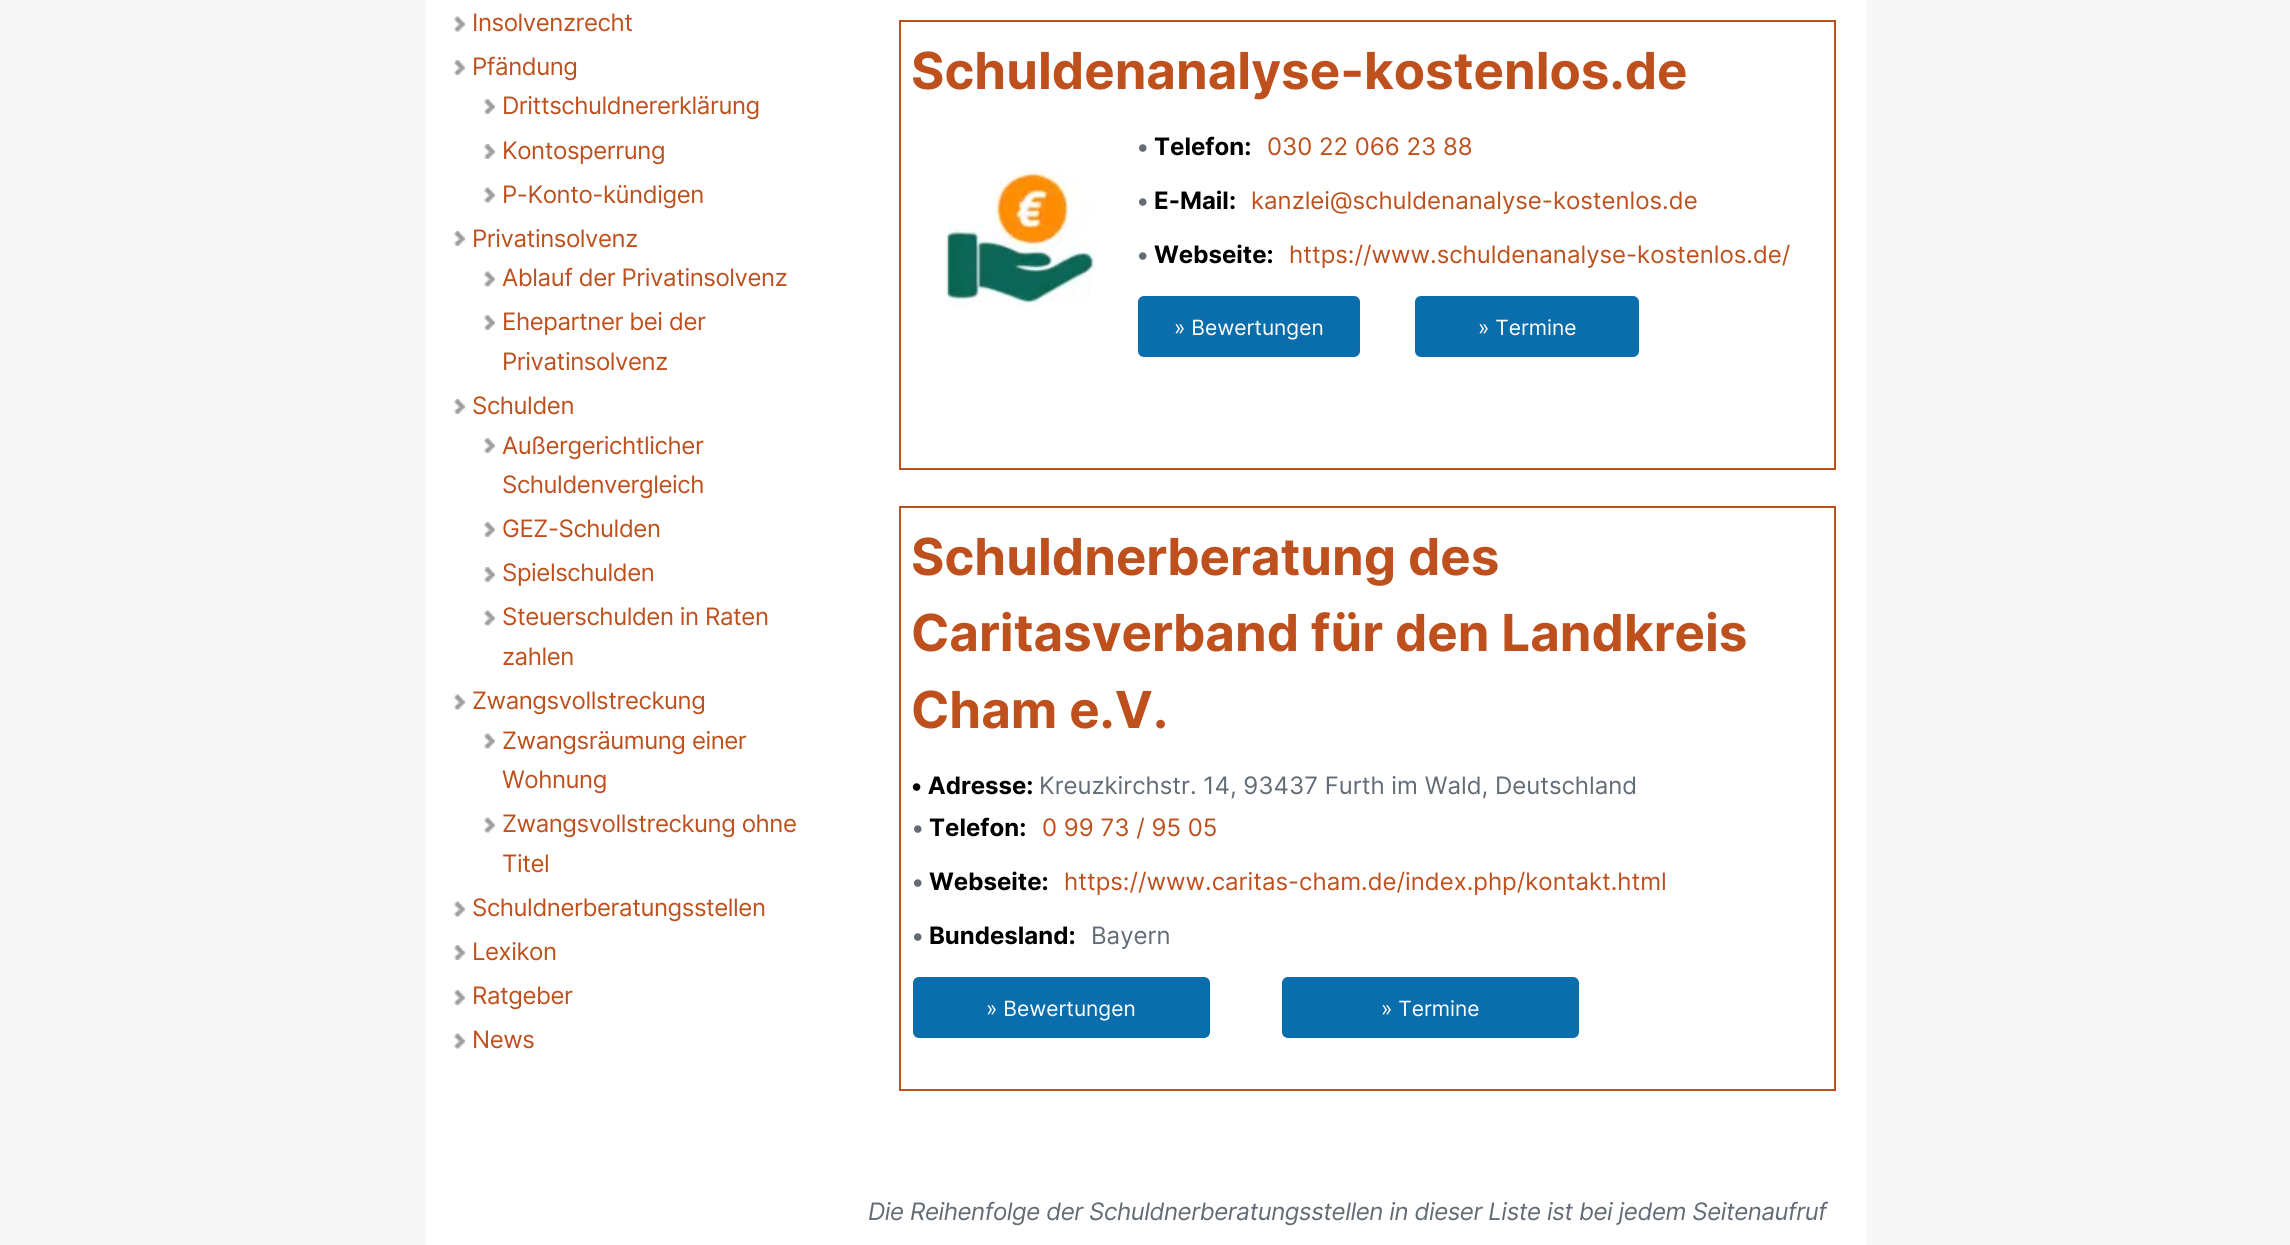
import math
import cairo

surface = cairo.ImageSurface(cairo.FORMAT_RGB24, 2290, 1245)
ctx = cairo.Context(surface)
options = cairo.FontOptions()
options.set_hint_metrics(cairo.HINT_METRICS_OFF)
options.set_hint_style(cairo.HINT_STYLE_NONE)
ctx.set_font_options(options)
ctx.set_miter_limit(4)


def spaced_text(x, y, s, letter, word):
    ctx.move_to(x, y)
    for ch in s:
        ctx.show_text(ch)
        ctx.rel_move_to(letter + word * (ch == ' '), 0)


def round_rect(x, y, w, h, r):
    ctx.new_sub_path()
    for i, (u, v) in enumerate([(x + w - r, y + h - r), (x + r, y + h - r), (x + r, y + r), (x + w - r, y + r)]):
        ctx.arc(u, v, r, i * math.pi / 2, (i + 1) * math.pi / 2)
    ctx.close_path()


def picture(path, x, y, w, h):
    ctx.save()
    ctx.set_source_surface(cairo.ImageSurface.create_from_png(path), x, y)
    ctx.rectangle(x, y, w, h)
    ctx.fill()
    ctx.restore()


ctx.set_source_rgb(0.965, 0.965, 0.965)
ctx.paint()
ctx.set_source_rgb(1, 1, 1)
ctx.rectangle(426, 0, 1440, 1245)
ctx.fill()
picture("img1.png", 454, 16, 11, 16)
ctx.select_font_face("Inter")
ctx.set_font_size(24)
ctx.set_source_rgb(0.745, 0.314, 0.114)
spaced_text(472, 31, "Insolvenzrecht", -0.43, 0)
picture("img2.png", 454, 60, 11, 15)
spaced_text(472, 75, "Pfändung", -0.43, 0)
picture("img2.png", 484, 99, 11, 15)
spaced_text(502, 114, "Drittschuldnererklärung", -0.43, 0)
picture("img2.png", 484, 144, 11, 15)
spaced_text(502, 159, "Kontosperrung", -0.43, 0)
picture("img1.png", 484, 187, 11, 16)
spaced_text(502, 203, "P-Konto-kündigen", -0.43, 0)
picture("img2.png", 454, 231, 11, 15)
spaced_text(472, 247, "Privatinsolvenz", -0.43, 0)
picture("img1.png", 484, 271, 11, 16)
spaced_text(502, 286, "Ablauf der Privatinsolvenz", -0.43, 0)
picture("img2.png", 484, 315, 11, 15)
spaced_text(502, 330, "Ehepartner bei der", -0.43, 0)
spaced_text(502, 370, "Privatinsolvenz", -0.43, 0)
picture("img2.png", 454, 399, 11, 15)
spaced_text(472, 414, "Schulden", -0.43, 0)
picture("img2.png", 484, 438, 11, 15)
spaced_text(502, 454, "Außergerichtlicher", -0.43, 0)
spaced_text(502, 493, "Schuldenvergleich", -0.43, 0)
picture("img2.png", 484, 522, 11, 15)
spaced_text(502, 537, "GEZ-Schulden", -0.43, 0)
picture("img2.png", 484, 567, 11, 15)
spaced_text(502, 581, "Spielschulden", -0.43, 0)
picture("img1.png", 484, 610, 11, 16)
spaced_text(502, 625, "Steuerschulden in Raten", -0.43, 0)
spaced_text(502, 665, "zahlen", -0.43, 0)
picture("img1.png", 454, 694, 11, 16)
spaced_text(472, 709, "Zwangsvollstreckung", -0.43, 0)
picture("img1.png", 484, 733, 11, 16)
spaced_text(502, 749, "Zwangsräumung einer", -0.43, 0)
spaced_text(502, 788, "Wohnung", -0.43, 0)
picture("img1.png", 484, 817, 11, 16)
spaced_text(502, 832, "Zwangsvollstreckung ohne", -0.43, 0)
spaced_text(502, 872, "Titel", -0.43, 0)
picture("img1.png", 454, 901, 11, 16)
spaced_text(472, 916, "Schuldnerberatungsstellen", -0.43, 0)
picture("img2.png", 454, 945, 11, 15)
spaced_text(472, 960, "Lexikon", -0.43, 0)
picture("img2.png", 454, 990, 11, 15)
spaced_text(472, 1004, "Ratgeber", -0.43, 0)
picture("img1.png", 454, 1033, 11, 16)
spaced_text(472, 1048, "News", -0.43, 0)
ctx.rectangle(900, 21, 935, 448)
ctx.stroke()
ctx.select_font_face("Inter", cairo.FONT_SLANT_NORMAL, cairo.FONT_WEIGHT_BOLD)
ctx.set_font_size(51)
ctx.move_to(911, 89)
ctx.show_text("Schuldenanalyse-kostenlos.de")
picture("img3.png", 946, 171, 151, 137)
ctx.select_font_face("Inter")
ctx.set_font_size(24)
ctx.set_source_rgb(0.388, 0.42, 0.459)
ctx.move_to(1136, 155)
ctx.show_text("•")
ctx.select_font_face("Inter", cairo.FONT_SLANT_NORMAL, cairo.FONT_WEIGHT_BOLD)
ctx.set_source_rgb(0, 0, 0)
ctx.move_to(1154, 155)
ctx.show_text("Telefon:")
ctx.select_font_face("Inter")
ctx.set_source_rgb(0.745, 0.314, 0.114)
ctx.move_to(1267, 155)
ctx.show_text("030 22 066 23 88")
ctx.set_source_rgb(0.388, 0.42, 0.459)
ctx.move_to(1136, 209)
ctx.show_text("•")
ctx.select_font_face("Inter", cairo.FONT_SLANT_NORMAL, cairo.FONT_WEIGHT_BOLD)
ctx.set_source_rgb(0, 0, 0)
ctx.move_to(1154, 209)
ctx.show_text("E-Mail:")
ctx.select_font_face("Inter")
ctx.set_source_rgb(0.745, 0.314, 0.114)
ctx.move_to(1251, 209)
ctx.show_text("kanzlei@schuldenanalyse-kostenlos.de")
ctx.set_source_rgb(0.388, 0.42, 0.459)
ctx.move_to(1136, 263)
ctx.show_text("•")
ctx.select_font_face("Inter", cairo.FONT_SLANT_NORMAL, cairo.FONT_WEIGHT_BOLD)
ctx.set_source_rgb(0, 0, 0)
ctx.move_to(1154, 263)
ctx.show_text("Webseite:")
ctx.select_font_face("Inter")
ctx.set_source_rgb(0.745, 0.314, 0.114)
ctx.move_to(1289, 263)
ctx.show_text("https://www.schuldenanalyse-kostenlos.de/")
ctx.set_source_rgb(0.043, 0.431, 0.675)
round_rect(1137, 295, 224, 63, 7)
ctx.fill_preserve()
ctx.set_source_rgb(1, 1, 1)
ctx.stroke()
ctx.set_font_size(21)
ctx.move_to(1174, 335)
ctx.show_text("» Bewertungen")
ctx.set_source_rgb(0.043, 0.431, 0.675)
round_rect(1414, 295, 226, 63, 7)
ctx.fill_preserve()
ctx.set_source_rgb(1, 1, 1)
ctx.stroke()
ctx.move_to(1478, 335)
ctx.show_text("» Termine")
ctx.rectangle(900, 507, 935, 583)
ctx.set_source_rgb(0.745, 0.314, 0.114)
ctx.stroke()
ctx.select_font_face("Inter", cairo.FONT_SLANT_NORMAL, cairo.FONT_WEIGHT_BOLD)
ctx.set_font_size(51)
ctx.move_to(911, 575)
ctx.show_text("Schuldnerberatung des")
ctx.move_to(911, 651)
ctx.show_text("Caritasverband für den Landkreis")
ctx.move_to(911, 728)
ctx.show_text("Cham e.V.")
ctx.set_font_size(24)
ctx.set_source_rgb(0, 0, 0)
ctx.move_to(911, 794)
ctx.show_text("• Adresse:")
ctx.select_font_face("Inter")
ctx.set_source_rgb(0.388, 0.42, 0.459)
ctx.move_to(1039, 794)
ctx.show_text("Kreuzkirchstr. 14, 93437 Furth im Wald, Deutschland")
ctx.move_to(911, 836)
ctx.show_text("•")
ctx.select_font_face("Inter", cairo.FONT_SLANT_NORMAL, cairo.FONT_WEIGHT_BOLD)
ctx.set_source_rgb(0, 0, 0)
ctx.move_to(929, 836)
ctx.show_text("Telefon:")
ctx.select_font_face("Inter")
ctx.set_source_rgb(0.745, 0.314, 0.114)
ctx.move_to(1042, 836)
ctx.show_text("0 99 73 / 95 05")
ctx.set_source_rgb(0.388, 0.42, 0.459)
ctx.move_to(911, 890)
ctx.show_text("•")
ctx.select_font_face("Inter", cairo.FONT_SLANT_NORMAL, cairo.FONT_WEIGHT_BOLD)
ctx.set_source_rgb(0, 0, 0)
ctx.move_to(929, 890)
ctx.show_text("Webseite:")
ctx.select_font_face("Inter")
ctx.set_source_rgb(0.745, 0.314, 0.114)
ctx.move_to(1064, 890)
ctx.show_text("https://www.caritas-cham.de/index.php/kontakt.html")
ctx.set_source_rgb(0.388, 0.42, 0.459)
ctx.move_to(911, 944)
ctx.show_text("•")
ctx.select_font_face("Inter", cairo.FONT_SLANT_NORMAL, cairo.FONT_WEIGHT_BOLD)
ctx.set_source_rgb(0, 0, 0)
ctx.move_to(929, 944)
ctx.show_text("Bundesland:")
ctx.select_font_face("Inter")
ctx.set_source_rgb(0.388, 0.42, 0.459)
ctx.move_to(1091, 944)
ctx.show_text("Bayern")
ctx.set_source_rgb(0.043, 0.431, 0.675)
round_rect(912, 976, 299, 63, 7)
ctx.fill_preserve()
ctx.set_source_rgb(1, 1, 1)
ctx.stroke()
ctx.set_font_size(21)
ctx.move_to(986, 1016)
ctx.show_text("» Bewertungen")
ctx.set_source_rgb(0.043, 0.431, 0.675)
round_rect(1281, 976, 299, 63, 7)
ctx.fill_preserve()
ctx.set_source_rgb(1, 1, 1)
ctx.stroke()
ctx.move_to(1381, 1016)
ctx.show_text("» Termine")
ctx.select_font_face("Inter", cairo.FONT_SLANT_ITALIC)
ctx.set_font_size(24)
ctx.set_source_rgb(0.388, 0.42, 0.459)
spaced_text(868, 1220, "Die Reihenfolge der Schuldnerberatungsstellen in dieser Liste ist bei jedem Seitenaufruf", -0.43, 0)
surface.write_to_png("page.png")
